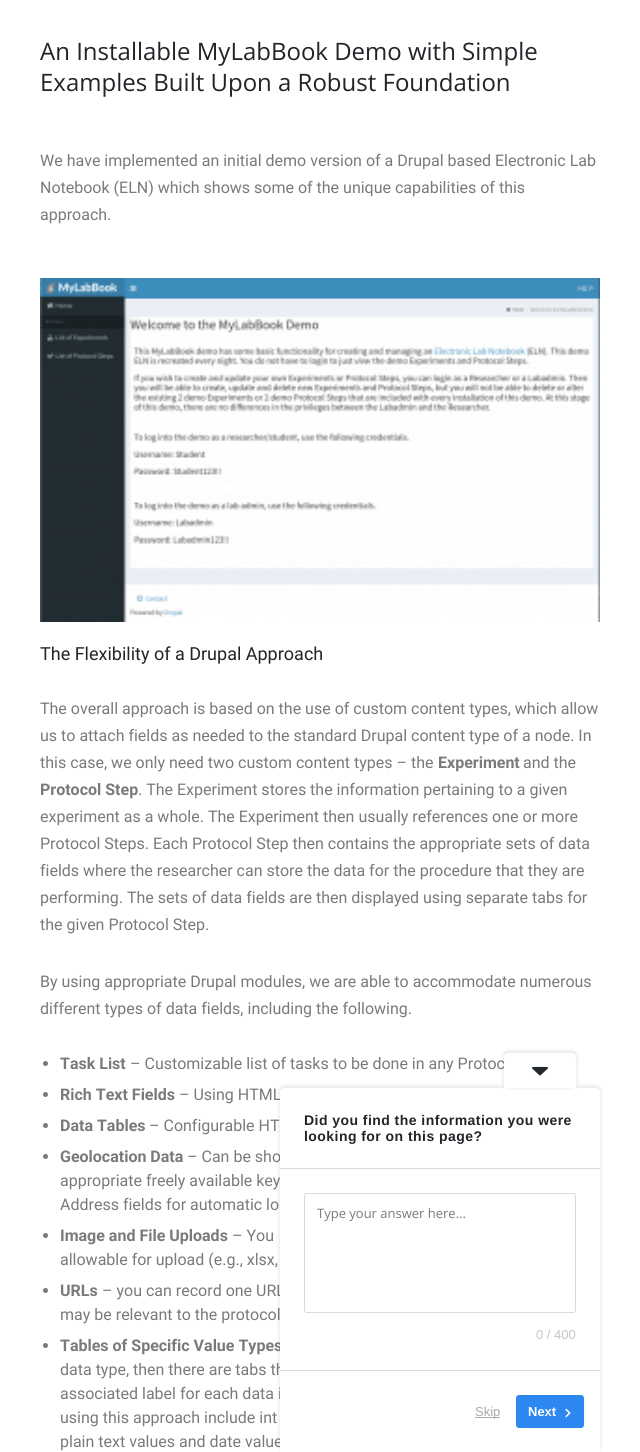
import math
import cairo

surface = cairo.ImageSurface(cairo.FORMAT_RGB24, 640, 1452)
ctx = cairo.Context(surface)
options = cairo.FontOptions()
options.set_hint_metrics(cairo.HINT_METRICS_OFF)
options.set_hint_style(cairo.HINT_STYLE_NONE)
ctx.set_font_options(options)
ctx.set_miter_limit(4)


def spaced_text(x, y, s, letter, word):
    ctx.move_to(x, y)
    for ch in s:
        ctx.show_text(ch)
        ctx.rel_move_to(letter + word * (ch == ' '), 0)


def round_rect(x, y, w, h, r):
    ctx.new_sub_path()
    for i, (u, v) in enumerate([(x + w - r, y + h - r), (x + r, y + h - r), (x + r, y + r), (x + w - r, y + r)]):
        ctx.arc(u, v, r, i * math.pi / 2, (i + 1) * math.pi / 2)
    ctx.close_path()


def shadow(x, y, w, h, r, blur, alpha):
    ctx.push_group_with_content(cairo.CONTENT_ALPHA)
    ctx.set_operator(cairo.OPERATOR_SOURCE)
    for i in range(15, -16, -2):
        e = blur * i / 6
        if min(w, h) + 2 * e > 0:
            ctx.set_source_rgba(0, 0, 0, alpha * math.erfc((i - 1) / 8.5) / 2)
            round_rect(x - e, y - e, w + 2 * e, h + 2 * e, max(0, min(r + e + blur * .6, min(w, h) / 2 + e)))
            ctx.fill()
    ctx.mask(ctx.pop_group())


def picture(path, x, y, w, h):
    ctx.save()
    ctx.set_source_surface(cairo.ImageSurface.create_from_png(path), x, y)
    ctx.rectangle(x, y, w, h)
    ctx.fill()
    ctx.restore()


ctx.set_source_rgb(1, 1, 1)
ctx.paint()
ctx.select_font_face("Open Sans")
ctx.set_font_size(24)
ctx.set_source_rgb(0.137, 0.141, 0.161)
ctx.move_to(40, 60)
ctx.show_text("An Installable MyLabBook Demo with Simple")
ctx.move_to(40, 91)
ctx.show_text("Examples Built Upon a Robust Foundation")
ctx.select_font_face("Roboto")
ctx.set_font_size(16)
ctx.set_source_rgb(0.478, 0.478, 0.478)
ctx.move_to(40, 166)
ctx.show_text("We have implemented an initial demo version of a Drupal based Electronic Lab")
ctx.move_to(40, 193)
ctx.show_text("Notebook (ELN) which shows some of the unique capabilities of this")
ctx.move_to(40, 220)
ctx.show_text("approach.")
picture("img1.png", 40, 278, 560, 344)
ctx.set_font_size(18)
ctx.set_source_rgb(0.137, 0.141, 0.161)
ctx.move_to(40, 660)
ctx.show_text("The Flexibility of a Drupal Approach")
ctx.set_font_size(16)
ctx.set_source_rgb(0.478, 0.478, 0.478)
ctx.move_to(40, 714)
ctx.show_text("The overall approach is based on the use of custom content types, which allow")
ctx.move_to(40, 741)
ctx.show_text("us to attach fields as needed to the standard Drupal content type of a node. In")
ctx.move_to(40, 768)
ctx.show_text("this case, we only need two custom content types – the")
ctx.select_font_face("Roboto", cairo.FONT_SLANT_NORMAL, cairo.FONT_WEIGHT_BOLD)
ctx.move_to(438, 768)
ctx.show_text("Experiment")
ctx.select_font_face("Roboto")
ctx.move_to(523, 768)
ctx.show_text("and the")
ctx.select_font_face("Roboto", cairo.FONT_SLANT_NORMAL, cairo.FONT_WEIGHT_BOLD)
ctx.move_to(40, 795)
ctx.show_text("Protocol Step")
ctx.select_font_face("Roboto")
ctx.move_to(138, 795)
ctx.show_text(". The Experiment stores the information pertaining to a given")
ctx.move_to(40, 822)
ctx.show_text("experiment as a whole. The Experiment then usually references one or more")
ctx.move_to(40, 849)
ctx.show_text("Protocol Steps. Each Protocol Step then contains the appropriate sets of data")
ctx.move_to(40, 876)
ctx.show_text("fields where the researcher can store the data for the procedure that they are")
ctx.move_to(40, 903)
ctx.show_text("performing. The sets of data fields are then displayed using separate tabs for")
ctx.move_to(40, 930)
ctx.show_text("the given Protocol Step.")
ctx.move_to(40, 987)
ctx.show_text("By using appropriate Drupal modules, we are able to accommodate numerous")
ctx.move_to(40, 1014)
ctx.show_text("different types of data fields, including the following.")
ctx.new_path()
ctx.arc(45.5, 1063.5, 2.5, 0, 2 * math.pi)
ctx.fill()
ctx.select_font_face("Roboto", cairo.FONT_SLANT_NORMAL, cairo.FONT_WEIGHT_BOLD)
ctx.move_to(60, 1069)
ctx.show_text("Task List")
ctx.select_font_face("Roboto")
ctx.move_to(130, 1069)
ctx.show_text("– Customizable list of tasks to be done in any Protoc")
ctx.new_path()
ctx.arc(45.5, 1094.5, 2.5, 0, 2 * math.pi)
ctx.fill()
ctx.select_font_face("Roboto", cairo.FONT_SLANT_NORMAL, cairo.FONT_WEIGHT_BOLD)
ctx.move_to(60, 1100)
ctx.show_text("Rich Text Fields")
ctx.select_font_face("Roboto")
ctx.move_to(179, 1100)
ctx.show_text("– Using HTML")
ctx.new_path()
ctx.arc(45.5, 1125.5, 2.5, 0, 2 * math.pi)
ctx.fill()
ctx.select_font_face("Roboto", cairo.FONT_SLANT_NORMAL, cairo.FONT_WEIGHT_BOLD)
ctx.move_to(60, 1131)
ctx.show_text("Data Tables")
ctx.select_font_face("Roboto")
ctx.move_to(149, 1131)
ctx.show_text("– Configurable HT")
ctx.new_path()
ctx.arc(45.5, 1156.5, 2.5, 0, 2 * math.pi)
ctx.fill()
ctx.select_font_face("Roboto", cairo.FONT_SLANT_NORMAL, cairo.FONT_WEIGHT_BOLD)
ctx.move_to(60, 1162)
ctx.show_text("Geolocation Data")
ctx.select_font_face("Roboto")
ctx.move_to(187, 1162)
ctx.show_text("– Can be sho")
ctx.move_to(60, 1186)
ctx.show_text("appropriate freely available key")
ctx.move_to(60, 1210)
ctx.show_text("Address fields for automatic lo")
ctx.new_path()
ctx.arc(45.5, 1235.5, 2.5, 0, 2 * math.pi)
ctx.fill()
ctx.select_font_face("Roboto", cairo.FONT_SLANT_NORMAL, cairo.FONT_WEIGHT_BOLD)
ctx.move_to(60, 1241)
ctx.show_text("Image and File Uploads")
ctx.select_font_face("Roboto")
ctx.move_to(232, 1241)
ctx.show_text("– You")
ctx.move_to(60, 1265)
ctx.show_text("allowable for upload (e.g., xlsx,")
ctx.new_path()
ctx.arc(45.5, 1290.5, 2.5, 0, 2 * math.pi)
ctx.fill()
ctx.select_font_face("Roboto", cairo.FONT_SLANT_NORMAL, cairo.FONT_WEIGHT_BOLD)
ctx.move_to(60, 1296)
ctx.show_text("URLs")
ctx.select_font_face("Roboto")
ctx.move_to(102, 1296)
ctx.show_text("– you can record one URL")
ctx.move_to(60, 1320)
ctx.show_text("may be relevant to the protocol")
ctx.new_path()
ctx.arc(45.5, 1345.5, 2.5, 0, 2 * math.pi)
ctx.fill()
ctx.select_font_face("Roboto", cairo.FONT_SLANT_NORMAL, cairo.FONT_WEIGHT_BOLD)
ctx.move_to(60, 1351)
ctx.show_text("Tables of Specific Value Types")
ctx.select_font_face("Roboto")
ctx.move_to(60, 1375)
ctx.show_text("data type, then there are tabs th")
ctx.move_to(60, 1399)
ctx.show_text("associated label for each data i")
ctx.move_to(60, 1423)
ctx.show_text("using this approach include int")
ctx.move_to(60, 1447)
ctx.show_text("plain text values and date value")
ctx.set_source_rgb(0, 0, 0)
shadow(278, 1085, 324, 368, 7, 1.5, 0.07)
ctx.set_source_rgb(1, 1, 1)
ctx.new_path()
ctx.move_to(285, 1088)
ctx.line_to(595, 1088)
ctx.curve_to(598, 1088, 600, 1090, 600, 1093)
ctx.line_to(600, 1452)
ctx.line_to(280, 1452)
ctx.line_to(280, 1093)
ctx.curve_to(280, 1090, 282, 1088, 285, 1088)
ctx.close_path()
ctx.fill()
ctx.set_source_rgb(0, 0, 0)
shadow(502, 1050, 76, 39, 7, 1.5, 0.07)
ctx.set_source_rgb(1, 1, 1)
ctx.new_path()
ctx.move_to(509, 1053)
ctx.line_to(571, 1053)
ctx.curve_to(574, 1053, 576, 1055, 576, 1058)
ctx.line_to(576, 1088)
ctx.line_to(504, 1088)
ctx.line_to(504, 1058)
ctx.curve_to(504, 1055, 506, 1053, 509, 1053)
ctx.close_path()
ctx.fill()
picture("img2.png", 532, 1066, 16, 10)
ctx.select_font_face("Liberation Sans", cairo.FONT_SLANT_NORMAL, cairo.FONT_WEIGHT_BOLD)
ctx.set_font_size(14)
ctx.set_source_rgb(0.137, 0.141, 0.161)
spaced_text(304, 1125, "Did you find the information you were", 0.45, 0)
spaced_text(304, 1141, "looking for on this page?", 0.45, 0)
ctx.set_source_rgb(0.851, 0.851, 0.851)
ctx.rectangle(280, 1168, 320, 1)
ctx.fill()
ctx.rectangle(280, 1370, 320, 1)
ctx.fill()
round_rect(304.5, 1193.5, 271, 119, 2.5)
ctx.set_source_rgb(0.855, 0.855, 0.855)
ctx.set_line_width(1)
ctx.stroke()
ctx.select_font_face("Open Sans")
ctx.set_font_size(13)
ctx.set_source_rgb(0.478, 0.478, 0.478)
ctx.move_to(317, 1218)
ctx.show_text("Type your answer here...")
ctx.select_font_face("Liberation Sans")
ctx.set_source_rgb(0.769, 0.769, 0.769)
ctx.move_to(536, 1339)
ctx.show_text("0 / 400")
ctx.set_source_rgb(0.667, 0.667, 0.667)
ctx.rectangle(475, 1417, 25, 1)
ctx.fill()
ctx.move_to(475, 1416)
ctx.show_text("Skip")
ctx.set_source_rgb(0.176, 0.529, 0.945)
round_rect(516, 1395, 68, 33, 3)
ctx.fill()
ctx.select_font_face("Liberation Sans", cairo.FONT_SLANT_NORMAL, cairo.FONT_WEIGHT_BOLD)
ctx.set_source_rgb(1, 1, 1)
ctx.move_to(528, 1416)
ctx.show_text("Next")
picture("img3.png", 565, 1408, 6, 10)
surface.write_to_png("page.png")
